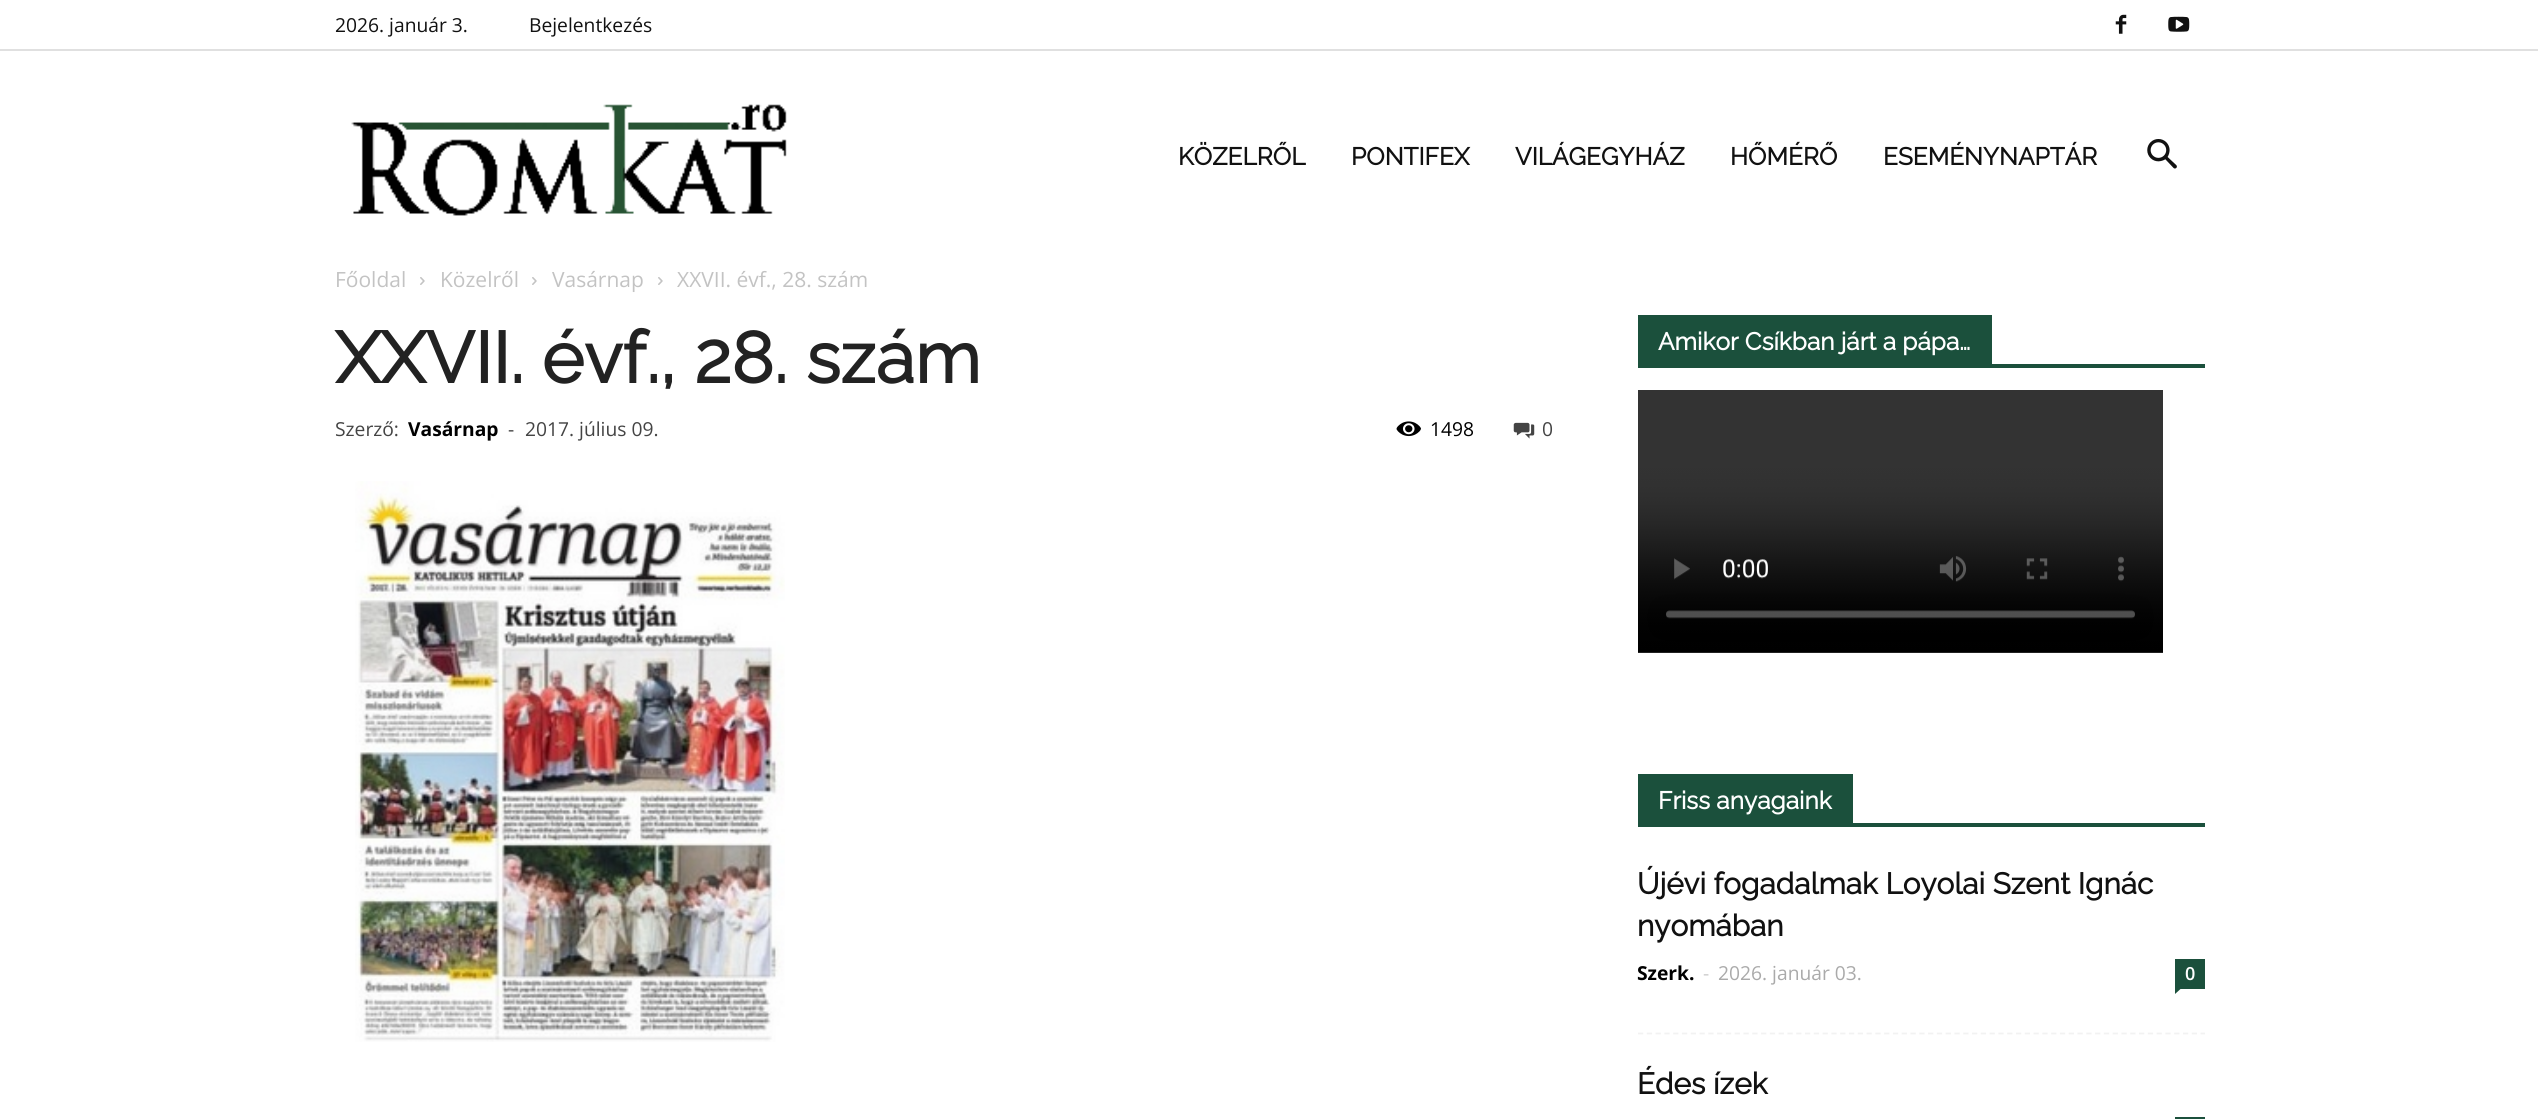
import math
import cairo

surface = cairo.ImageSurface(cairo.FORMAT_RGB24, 2538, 1119)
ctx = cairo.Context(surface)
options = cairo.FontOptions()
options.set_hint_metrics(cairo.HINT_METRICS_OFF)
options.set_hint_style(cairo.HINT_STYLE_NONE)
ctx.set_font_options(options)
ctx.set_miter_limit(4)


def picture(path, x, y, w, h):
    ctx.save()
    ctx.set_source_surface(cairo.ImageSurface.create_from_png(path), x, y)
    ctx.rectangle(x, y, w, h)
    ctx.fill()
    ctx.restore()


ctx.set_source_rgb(1, 1, 1)
ctx.paint()
ctx.set_source_rgb(0.878, 0.878, 0.878)
ctx.rectangle(0, 49, 2538, 2)
ctx.fill()
ctx.select_font_face("Open Sans")
ctx.set_font_size(19.25)
ctx.set_source_rgb(0.067, 0.067, 0.067)
ctx.move_to(335, 32)
ctx.show_text("2026. január 3.")
ctx.move_to(529, 32)
ctx.show_text("Bejelentkezés")
picture("img1.png", 2115, 14, 12, 20)
picture("img2.png", 2168, 16, 22, 16)
picture("img3.png", 351, 104, 436, 112)
ctx.select_font_face("Raleway", cairo.FONT_SLANT_NORMAL, cairo.FONT_WEIGHT_BOLD)
ctx.set_font_size(24.5)
ctx.move_to(1178, 165)
ctx.show_text("KÖZELRŐL")
ctx.move_to(1351, 165)
ctx.show_text("PONTIFEX")
ctx.move_to(1515, 165)
ctx.show_text("VILÁGEGYHÁZ")
ctx.move_to(1730, 165)
ctx.show_text("HŐMÉRŐ")
ctx.move_to(1883, 165)
ctx.show_text("ESEMÉNYNAPTÁR")
picture("img4.png", 2147, 139, 30, 30)
ctx.select_font_face("Open Sans")
ctx.set_font_size(21)
ctx.set_source_rgb(0.765, 0.765, 0.765)
ctx.move_to(335, 287)
ctx.show_text("Főoldal")
picture("img5.png", 420, 277, 5, 8)
ctx.move_to(440, 287)
ctx.show_text("Közelről")
picture("img5.png", 532, 277, 5, 8)
ctx.move_to(552, 287)
ctx.show_text("Vasárnap")
picture("img5.png", 658, 277, 5, 8)
ctx.move_to(677, 287)
ctx.show_text("XXVII. évf., 28. szám")
ctx.select_font_face("Raleway", cairo.FONT_SLANT_NORMAL, cairo.FONT_WEIGHT_BOLD)
ctx.set_font_size(71.75)
ctx.set_source_rgb(0.133, 0.133, 0.133)
ctx.move_to(335, 383)
ctx.show_text("XXVII. évf., 28. szám")
ctx.select_font_face("Open Sans")
ctx.set_font_size(19.25)
ctx.set_source_rgb(0.267, 0.267, 0.267)
ctx.move_to(335, 436)
ctx.show_text("Szerző:")
ctx.select_font_face("Open Sans", cairo.FONT_SLANT_NORMAL, cairo.FONT_WEIGHT_BOLD)
ctx.set_source_rgb(0, 0, 0)
ctx.move_to(408, 436)
ctx.show_text("Vasárnap")
ctx.select_font_face("Open Sans")
ctx.set_source_rgb(0.267, 0.267, 0.267)
ctx.move_to(508, 436)
ctx.show_text("-")
ctx.move_to(525, 436)
ctx.show_text("2017. július 09.")
picture("img6.png", 1396, 421, 25, 16)
ctx.set_source_rgb(0, 0, 0)
ctx.move_to(1430, 436)
ctx.show_text("1498")
picture("img7.png", 1513, 422, 22, 17)
ctx.set_source_rgb(0.267, 0.267, 0.267)
ctx.move_to(1542, 436)
ctx.show_text("0")
picture("img8.png", 355, 481, 430, 561)
ctx.set_source_rgb(0.106, 0.314, 0.235)
ctx.rectangle(1638, 364, 567, 4)
ctx.fill()
ctx.rectangle(1638, 315, 354, 49)
ctx.fill()
ctx.select_font_face("Raleway", cairo.FONT_SLANT_NORMAL, cairo.FONT_WEIGHT_BOLD)
ctx.set_font_size(24.5)
ctx.set_source_rgb(1, 1, 1)
ctx.move_to(1658, 350)
ctx.show_text("Amikor Csíkban járt a pápa…")
picture("img9.png", 1638, 390, 525, 263)
ctx.set_source_rgb(0.106, 0.314, 0.235)
ctx.rectangle(1638, 823, 567, 4)
ctx.fill()
ctx.rectangle(1638, 774, 215, 49)
ctx.fill()
ctx.set_source_rgb(1, 1, 1)
ctx.move_to(1658, 809)
ctx.show_text("Friss anyagaink")
ctx.new_path()
ctx.move_to(1638, 1033.5)
ctx.line_to(2205, 1033.5)
ctx.set_source_rgb(0.949, 0.949, 0.949)
ctx.set_line_width(1.8)
ctx.set_dash([5.25, 3.54])
ctx.stroke()
ctx.set_font_size(29.75)
ctx.set_source_rgb(0.067, 0.067, 0.067)
ctx.move_to(1637, 894)
ctx.show_text("Újévi fogadalmak Loyolai Szent Ignác")
ctx.move_to(1637, 936)
ctx.show_text("nyomában")
ctx.select_font_face("Open Sans", cairo.FONT_SLANT_NORMAL, cairo.FONT_WEIGHT_BOLD)
ctx.set_font_size(19.25)
ctx.set_source_rgb(0, 0, 0)
ctx.move_to(1637, 980)
ctx.show_text("Szerk.")
ctx.select_font_face("Open Sans")
ctx.set_source_rgb(0.8, 0.8, 0.8)
ctx.move_to(1703, 980)
ctx.show_text("-")
ctx.set_source_rgb(0.667, 0.667, 0.667)
ctx.move_to(1718, 980)
ctx.show_text("2026. január 03.")
ctx.set_source_rgb(0.106, 0.314, 0.235)
ctx.rectangle(2175, 959, 30, 30)
ctx.fill()
ctx.select_font_face("Open Sans SemiBold")
ctx.set_font_size(18)
ctx.set_source_rgb(1, 1, 1)
ctx.move_to(2185, 980)
ctx.show_text("0")
ctx.set_source_rgb(0.106, 0.314, 0.235)
ctx.new_path()
ctx.move_to(2175, 989)
ctx.line_to(2180.5, 989)
ctx.line_to(2175, 994)
ctx.close_path()
ctx.fill()
ctx.select_font_face("Raleway", cairo.FONT_SLANT_NORMAL, cairo.FONT_WEIGHT_BOLD)
ctx.set_font_size(29.75)
ctx.set_source_rgb(0.067, 0.067, 0.067)
ctx.move_to(1637, 1094)
ctx.show_text("Édes ízek")
ctx.set_source_rgb(0.106, 0.314, 0.235)
ctx.rectangle(2175, 1117, 30, 2)
ctx.fill()
surface.write_to_png("page.png")
